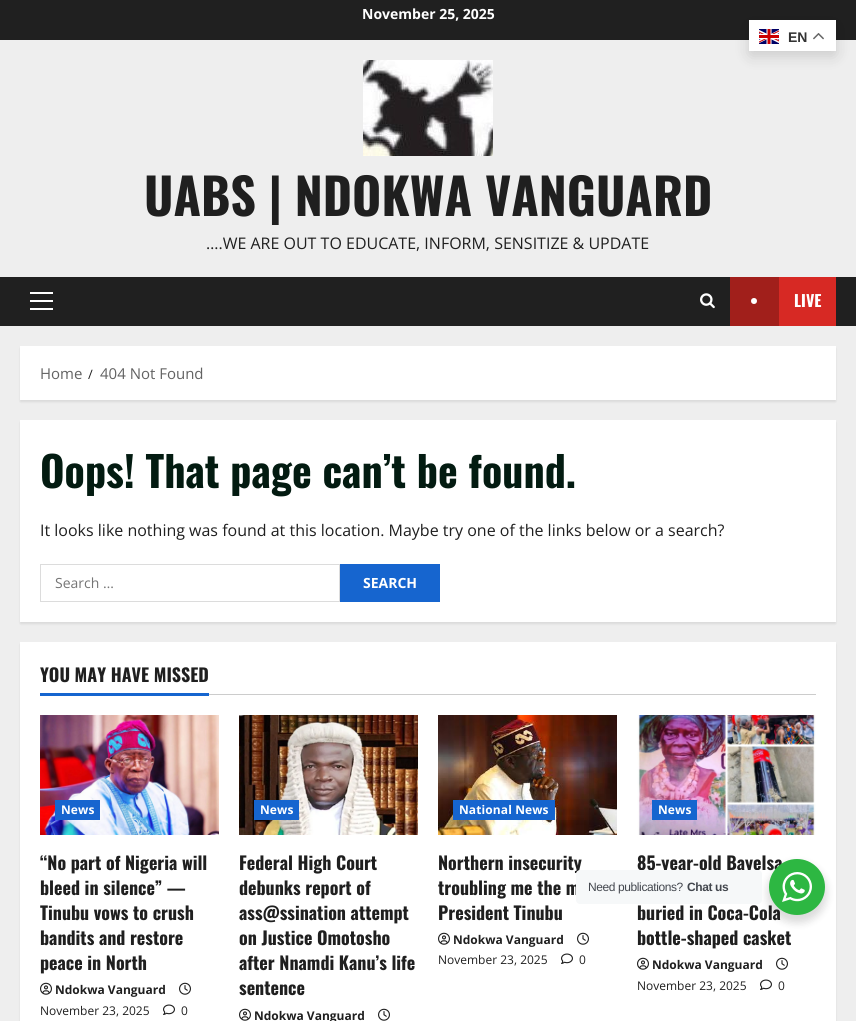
import math
import cairo

surface = cairo.ImageSurface(cairo.FORMAT_RGB24, 856, 1021)
ctx = cairo.Context(surface)
options = cairo.FontOptions()
options.set_hint_metrics(cairo.HINT_METRICS_OFF)
options.set_hint_style(cairo.HINT_STYLE_NONE)
ctx.set_font_options(options)
ctx.set_miter_limit(4)


def spaced_text(x, y, s, letter, word):
    ctx.move_to(x, y)
    for ch in s:
        ctx.show_text(ch)
        ctx.rel_move_to(letter + word * (ch == ' '), 0)


def round_rect(x, y, w, h, r):
    ctx.new_sub_path()
    for i, (u, v) in enumerate([(x + w - r, y + h - r), (x + r, y + h - r), (x + r, y + r), (x + w - r, y + r)]):
        ctx.arc(u, v, r, i * math.pi / 2, (i + 1) * math.pi / 2)
    ctx.close_path()


def shadow(x, y, w, h, r, blur, alpha):
    ctx.push_group_with_content(cairo.CONTENT_ALPHA)
    ctx.set_operator(cairo.OPERATOR_SOURCE)
    for i in range(15, -16, -2):
        e = blur * i / 6
        if min(w, h) + 2 * e > 0:
            ctx.set_source_rgba(0, 0, 0, alpha * math.erfc((i - 1) / 8.5) / 2)
            round_rect(x - e, y - e, w + 2 * e, h + 2 * e, max(0, min(r + e + blur * .6, min(w, h) / 2 + e)))
            ctx.fill()
    ctx.mask(ctx.pop_group())


def picture(path, x, y, w, h):
    ctx.save()
    ctx.set_source_surface(cairo.ImageSurface.create_from_png(path), x, y)
    ctx.rectangle(x, y, w, h)
    ctx.fill()
    ctx.restore()


ctx.set_source_rgb(0.933, 0.933, 0.933)
ctx.paint()
ctx.set_source_rgb(0.125, 0.125, 0.125)
ctx.rectangle(0, 0, 856, 40)
ctx.fill()
ctx.select_font_face("Open Sans", cairo.FONT_SLANT_NORMAL, cairo.FONT_WEIGHT_BOLD)
ctx.set_font_size(14)
ctx.set_source_rgb(1, 1, 1)
ctx.move_to(362, 19)
ctx.show_text("November 25, 2025")
picture("img1.png", 363, 60, 130, 96)
ctx.select_font_face("Oswald", cairo.FONT_SLANT_NORMAL, cairo.FONT_WEIGHT_BOLD)
ctx.set_font_size(50)
ctx.set_source_rgb(0.122, 0.122, 0.122)
ctx.move_to(144, 216)
ctx.show_text("UABS | NDOKWA VANGUARD")
ctx.select_font_face("Open Sans")
ctx.set_font_size(16)
ctx.move_to(206, 249)
ctx.show_text("….WE ARE OUT TO EDUCATE, INFORM, SENSITIZE & UPDATE")
ctx.set_source_rgb(0.125, 0.125, 0.125)
ctx.rectangle(0, 277, 856, 49)
ctx.fill()
ctx.set_source_rgb(1, 1, 1)
ctx.rectangle(30, 300, 23, 2)
ctx.fill()
ctx.rectangle(30, 292, 23, 2)
ctx.fill()
ctx.rectangle(30, 308, 23, 2)
ctx.fill()
picture("img2.png", 700, 293, 15, 16)
ctx.set_source_rgb(0.843, 0.161, 0.141)
ctx.rectangle(779, 277, 57, 49)
ctx.fill()
ctx.set_source_rgb(0.631, 0.122, 0.106)
ctx.rectangle(730, 277, 49, 49)
ctx.fill()
ctx.set_source_rgb(1, 1, 1)
ctx.arc(754, 301, 3, 0, 2 * math.pi)
ctx.fill()
ctx.select_font_face("Oswald", cairo.FONT_SLANT_NORMAL, cairo.FONT_WEIGHT_BOLD)
ctx.move_to(794, 307)
ctx.show_text("LIVE")
ctx.set_source_rgb(0, 0, 0)
shadow(20, 348, 816, 54, 0, 1, 0.08)
ctx.set_source_rgb(1, 1, 1)
ctx.rectangle(20, 346, 816, 54)
ctx.fill()
ctx.select_font_face("Open Sans")
ctx.set_font_size(15)
ctx.set_source_rgb(0.384, 0.384, 0.384)
ctx.move_to(40, 379)
ctx.show_text("Home")
ctx.set_font_size(13)
ctx.set_source_rgb(0.122, 0.122, 0.122)
ctx.move_to(88, 379)
ctx.show_text("/")
ctx.set_font_size(15)
ctx.set_source_rgb(0.384, 0.384, 0.384)
ctx.move_to(100, 379)
ctx.show_text("404 Not Found")
ctx.set_source_rgb(0, 0, 0)
shadow(20, 422, 816, 202, 0, 1, 0.08)
ctx.set_source_rgb(1, 1, 1)
ctx.rectangle(20, 420, 816, 202)
ctx.fill()
ctx.select_font_face("Oswald", cairo.FONT_SLANT_NORMAL, cairo.FONT_WEIGHT_BOLD)
ctx.set_font_size(42)
ctx.set_source_rgb(0.012, 0.106, 0.067)
ctx.move_to(40, 488)
ctx.show_text("Oops! That page can’t be found.")
ctx.select_font_face("Open Sans")
ctx.set_font_size(16)
ctx.set_source_rgb(0.122, 0.122, 0.122)
ctx.move_to(40, 536)
ctx.show_text("It looks like nothing was found at this location. Maybe try one of the links below or a search?")
ctx.rectangle(40.5, 564.5, 299, 37)
ctx.set_source_rgb(0.863, 0.863, 0.863)
ctx.set_line_width(1)
ctx.stroke()
ctx.set_font_size(14)
ctx.set_source_rgb(0.459, 0.459, 0.459)
ctx.move_to(55, 588)
ctx.show_text("Search …")
ctx.set_source_rgb(0.086, 0.396, 0.812)
ctx.rectangle(340, 564, 100, 38)
ctx.fill()
ctx.select_font_face("Open Sans", cairo.FONT_SLANT_NORMAL, cairo.FONT_WEIGHT_BOLD)
ctx.set_source_rgb(1, 1, 1)
ctx.move_to(363, 588)
ctx.show_text("SEARCH")
ctx.set_source_rgb(0, 0, 0)
shadow(20, 644, 816, 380, 0, 1, 0.08)
ctx.set_source_rgb(1, 1, 1)
ctx.rectangle(20, 642, 816, 379)
ctx.fill()
ctx.set_source_rgb(0.8, 0.8, 0.8)
ctx.rectangle(209, 694, 607, 1)
ctx.fill()
ctx.select_font_face("Oswald", cairo.FONT_SLANT_NORMAL, cairo.FONT_WEIGHT_BOLD)
ctx.set_font_size(18)
ctx.set_source_rgb(0.122, 0.122, 0.122)
ctx.move_to(40, 682)
ctx.show_text("YOU MAY HAVE MISSED")
ctx.set_source_rgb(0.086, 0.396, 0.812)
ctx.rectangle(40, 693, 169, 3)
ctx.fill()
picture("img3.png", 40, 715, 179, 120)
ctx.rectangle(55, 800, 45, 20)
ctx.fill()
ctx.select_font_face("Open Sans", cairo.FONT_SLANT_NORMAL, cairo.FONT_WEIGHT_BOLD)
ctx.set_font_size(12)
ctx.set_source_rgb(1, 1, 1)
spaced_text(61, 814, "News", 0.1, 0)
ctx.select_font_face("Oswald", cairo.FONT_SLANT_NORMAL, cairo.FONT_WEIGHT_BOLD)
ctx.set_font_size(18)
ctx.set_source_rgb(0.122, 0.122, 0.122)
ctx.move_to(40, 870)
ctx.show_text("“No part of Nigeria will")
ctx.move_to(40, 895)
ctx.show_text("bleed in silence” —")
ctx.move_to(40, 920)
ctx.show_text("Tinubu vows to crush")
ctx.move_to(40, 945)
ctx.show_text("bandits and restore")
ctx.move_to(40, 970)
ctx.show_text("peace in North")
picture("img4.png", 40, 982, 12, 13)
ctx.select_font_face("Open Sans", cairo.FONT_SLANT_NORMAL, cairo.FONT_WEIGHT_BOLD)
ctx.set_font_size(12)
ctx.move_to(55, 994)
ctx.show_text("Ndokwa Vanguard")
picture("img5.png", 179, 982, 12, 13)
ctx.select_font_face("Open Sans")
ctx.move_to(40, 1015)
ctx.show_text("November 23, 2025")
picture("img6.png", 163, 1004, 12, 11)
ctx.move_to(181, 1015)
ctx.show_text("0")
picture("img7.png", 239, 715, 179, 120)
ctx.set_source_rgb(0.086, 0.396, 0.812)
ctx.rectangle(254, 800, 45, 20)
ctx.fill()
ctx.select_font_face("Open Sans", cairo.FONT_SLANT_NORMAL, cairo.FONT_WEIGHT_BOLD)
ctx.set_source_rgb(1, 1, 1)
spaced_text(260, 814, "News", 0.1, 0)
ctx.select_font_face("Oswald", cairo.FONT_SLANT_NORMAL, cairo.FONT_WEIGHT_BOLD)
ctx.set_font_size(18)
ctx.set_source_rgb(0.122, 0.122, 0.122)
ctx.move_to(239, 870)
ctx.show_text("Federal High Court")
ctx.move_to(239, 895)
ctx.show_text("debunks report of")
ctx.move_to(239, 920)
ctx.show_text("ass@ssination attempt")
ctx.move_to(239, 945)
ctx.show_text("on Justice Omotosho")
ctx.move_to(239, 970)
ctx.show_text("after Nnamdi Kanu’s life")
ctx.move_to(239, 995)
ctx.show_text("sentence")
picture("img4.png", 239, 1008, 12, 13)
ctx.select_font_face("Open Sans", cairo.FONT_SLANT_NORMAL, cairo.FONT_WEIGHT_BOLD)
ctx.set_font_size(12)
ctx.move_to(254, 1020)
ctx.show_text("Ndokwa Vanguard")
picture("img5.png", 378, 1008, 12, 13)
picture("img8.png", 438, 715, 179, 120)
ctx.set_source_rgb(0.086, 0.396, 0.812)
ctx.rectangle(453, 800, 102, 20)
ctx.fill()
ctx.set_source_rgb(1, 1, 1)
spaced_text(459, 814, "National News", 0.1, 0)
ctx.select_font_face("Oswald", cairo.FONT_SLANT_NORMAL, cairo.FONT_WEIGHT_BOLD)
ctx.set_font_size(18)
ctx.set_source_rgb(0.122, 0.122, 0.122)
ctx.move_to(438, 870)
ctx.show_text("Northern insecurity")
ctx.move_to(438, 895)
ctx.show_text("troubling me the m")
ctx.move_to(438, 920)
ctx.show_text("President Tinubu")
picture("img4.png", 438, 932, 12, 13)
ctx.select_font_face("Open Sans", cairo.FONT_SLANT_NORMAL, cairo.FONT_WEIGHT_BOLD)
ctx.set_font_size(12)
ctx.move_to(453, 944)
ctx.show_text("Ndokwa Vanguard")
picture("img5.png", 577, 932, 12, 13)
ctx.select_font_face("Open Sans")
ctx.move_to(438, 964)
ctx.show_text("November 23, 2025")
picture("img6.png", 561, 953, 12, 11)
ctx.move_to(579, 964)
ctx.show_text("0")
picture("img9.png", 637, 715, 179, 120)
ctx.set_source_rgb(0.086, 0.396, 0.812)
ctx.rectangle(652, 800, 45, 20)
ctx.fill()
ctx.select_font_face("Open Sans", cairo.FONT_SLANT_NORMAL, cairo.FONT_WEIGHT_BOLD)
ctx.set_source_rgb(1, 1, 1)
spaced_text(658, 814, "News", 0.1, 0)
ctx.select_font_face("Oswald", cairo.FONT_SLANT_NORMAL, cairo.FONT_WEIGHT_BOLD)
ctx.set_font_size(18)
ctx.set_source_rgb(0.122, 0.122, 0.122)
ctx.move_to(637, 870)
ctx.show_text("85-year-old Bayelsa")
ctx.move_to(637, 920)
ctx.show_text("buried in Coca-Cola")
ctx.move_to(637, 945)
ctx.show_text("bottle-shaped casket")
picture("img4.png", 637, 957, 12, 13)
ctx.select_font_face("Open Sans", cairo.FONT_SLANT_NORMAL, cairo.FONT_WEIGHT_BOLD)
ctx.set_font_size(12)
ctx.move_to(652, 969)
ctx.show_text("Ndokwa Vanguard")
picture("img5.png", 776, 957, 12, 13)
ctx.select_font_face("Open Sans")
ctx.move_to(637, 990)
ctx.show_text("November 23, 2025")
picture("img6.png", 760, 979, 12, 11)
ctx.move_to(778, 990)
ctx.show_text("0")
ctx.set_source_rgb(0, 0, 0)
shadow(749, 25, 87, 31, 2, 7.5, 0.15)
ctx.set_source_rgb(1, 1, 1)
ctx.rectangle(749, 20, 87, 31)
ctx.fill()
picture("img10.png", 759, 29, 20, 15)
ctx.select_font_face("Liberation Sans", cairo.FONT_SLANT_NORMAL, cairo.FONT_WEIGHT_BOLD)
ctx.set_font_size(14)
ctx.set_source_rgb(0.2, 0.2, 0.2)
ctx.move_to(788, 42)
ctx.show_text("EN")
picture("img11.png", 813, 33, 11, 7)
ctx.set_source_rgb(0, 0, 0)
shadow(767, 863, 60, 60, 30, 4, 0.14)
ctx.set_source_rgb(0.961, 0.969, 0.976)
round_rect(576, 870, 186, 34, 4)
ctx.fill()
ctx.select_font_face("Liberation Sans")
ctx.set_font_size(12)
ctx.set_source_rgb(0.263, 0.278, 0.306)
spaced_text(588, 891, "Need publications?", -0.4, 0)
ctx.select_font_face("Liberation Sans", cairo.FONT_SLANT_NORMAL, cairo.FONT_WEIGHT_BOLD)
spaced_text(687, 891, "Chat us", -0.4, 0)
ctx.set_source_rgb(0.176, 0.718, 0.259)
ctx.new_path()
ctx.arc(797, 887, 28, 0, 2 * math.pi)
ctx.fill()
picture("img12.png", 782, 872, 30, 30)
surface.write_to_png("page.png")
